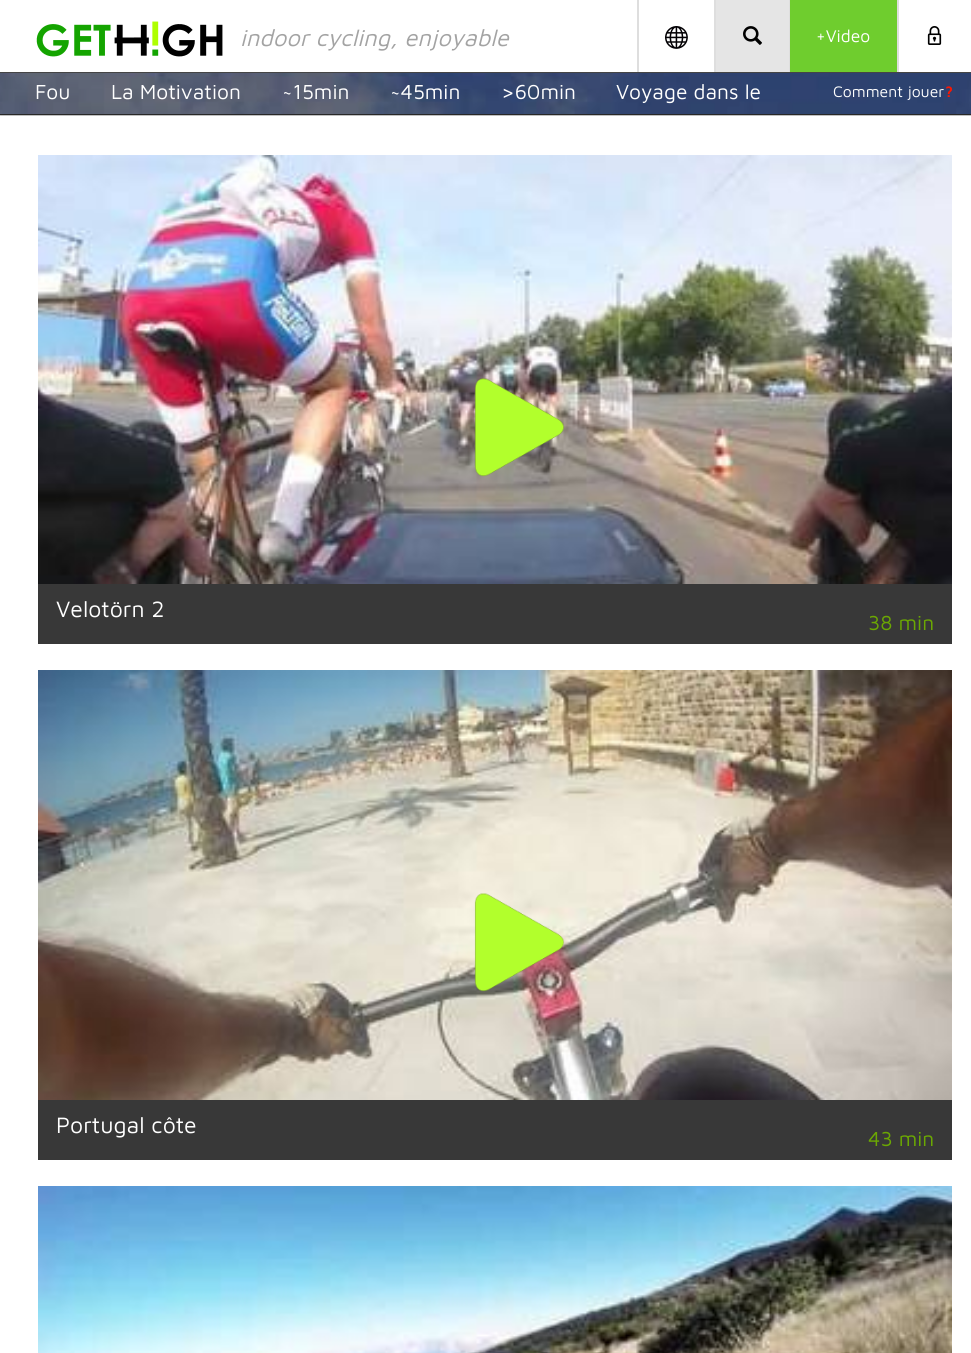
import math
import cairo

surface = cairo.ImageSurface(cairo.FORMAT_RGB24, 971, 1353)
ctx = cairo.Context(surface)
options = cairo.FontOptions()
options.set_hint_metrics(cairo.HINT_METRICS_OFF)
options.set_hint_style(cairo.HINT_STYLE_NONE)
ctx.set_font_options(options)
ctx.set_miter_limit(4)


def round_rect(x, y, w, h, r):
    ctx.new_sub_path()
    for i, (u, v) in enumerate([(x + w - r, y + h - r), (x + r, y + h - r), (x + r, y + r), (x + w - r, y + r)]):
        ctx.arc(u, v, r, i * math.pi / 2, (i + 1) * math.pi / 2)
    ctx.close_path()


def shadow(x, y, w, h, r, blur, alpha):
    ctx.push_group_with_content(cairo.CONTENT_ALPHA)
    ctx.set_operator(cairo.OPERATOR_SOURCE)
    for i in range(15, -16, -2):
        e = blur * i / 6
        if min(w, h) + 2 * e > 0:
            ctx.set_source_rgba(0, 0, 0, alpha * math.erfc((i - 1) / 8.5) / 2)
            round_rect(x - e, y - e, w + 2 * e, h + 2 * e, max(0, min(r + e + blur * .6, min(w, h) / 2 + e)))
            ctx.fill()
    ctx.mask(ctx.pop_group())


def picture(path, x, y, w, h):
    ctx.save()
    ctx.set_source_surface(cairo.ImageSurface.create_from_png(path), x, y)
    ctx.rectangle(x, y, w, h)
    ctx.fill()
    ctx.restore()


ctx.set_source_rgb(1, 1, 1)
ctx.paint()
picture("img10.png", 0, 73, 971, 41)
ctx.save()
ctx.rectangle(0, 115, 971, 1)
ctx.clip()
ctx.set_source_rgb(0, 0, 0)
shadow(0, 0, 971, 115, 0, 0.5, 1)
ctx.restore()
ctx.set_source_rgb(0.271, 0.271, 0.271)
ctx.rectangle(0, 72, 971, 1)
ctx.fill()
picture("img1.png", 36, 21, 187, 36)
ctx.select_font_face("Maven Pro", cairo.FONT_SLANT_ITALIC)
ctx.set_font_size(23.75)
ctx.set_source_rgb(0.639, 0.639, 0.639)
ctx.move_to(240, 46)
ctx.show_text("indoor cycling, enjoyable")
ctx.set_source_rgb(0.871, 0.871, 0.871)
ctx.rectangle(637, 0, 2, 72)
ctx.fill()
picture("img2.png", 665, 26, 23, 23)
ctx.set_source_rgb(0.898, 0.898, 0.898)
ctx.rectangle(716, 0, 73, 72)
ctx.fill()
ctx.set_source_rgb(0.871, 0.871, 0.871)
ctx.rectangle(714, 0, 2, 72)
ctx.fill()
picture("img3.png", 743, 26, 19, 19)
ctx.set_source_rgb(0.435, 0.804, 0.18)
ctx.rectangle(790, 0, 107, 72)
ctx.fill()
ctx.set_source_rgb(0.871, 0.871, 0.871)
ctx.rectangle(789, 0, 1, 72)
ctx.fill()
ctx.select_font_face("Maven Pro")
ctx.set_font_size(17.5)
ctx.set_source_rgb(1, 1, 1)
ctx.move_to(816, 42)
ctx.show_text("+Video")
ctx.set_source_rgb(0.871, 0.871, 0.871)
ctx.rectangle(897, 0, 2, 72)
ctx.fill()
picture("img4.png", 927, 26, 15, 19)
ctx.set_source_rgba(0, 0, 0, 0.35)
ctx.rectangle(0, 73, 971, 41)
ctx.fill()
ctx.set_source_rgb(0.157, 0.157, 0.157)
ctx.rectangle(0, 114, 971, 1)
ctx.fill()
ctx.set_font_size(21)
ctx.set_source_rgb(1, 1, 1)
ctx.move_to(35, 99)
ctx.show_text("Fou")
ctx.move_to(111, 99)
ctx.show_text("La Motivation")
ctx.move_to(282, 99)
ctx.show_text("~15min")
ctx.move_to(390, 99)
ctx.show_text("~45min")
ctx.move_to(501, 99)
ctx.show_text(">60min")
ctx.move_to(616, 99)
ctx.show_text("Voyage dans le")
ctx.set_font_size(15.75)
ctx.move_to(833, 97)
ctx.show_text("Comment jouer")
ctx.select_font_face("Maven Pro", cairo.FONT_SLANT_NORMAL, cairo.FONT_WEIGHT_BOLD)
ctx.set_source_rgb(1, 0.086, 0)
ctx.move_to(945, 97)
ctx.show_text("?")
ctx.set_source_rgb(0.22, 0.22, 0.22)
ctx.rectangle(38, 584, 914, 60)
ctx.fill()
picture("img5.png", 38, 155, 914, 429)
picture("img6.png", 474, 378, 91, 99)
ctx.select_font_face("Maven Pro")
ctx.set_font_size(23)
ctx.set_source_rgb(1, 1, 1)
ctx.move_to(56, 617)
ctx.show_text("Velotörn 2")
ctx.set_font_size(21)
ctx.set_source_rgb(0.42, 0.659, 0.008)
ctx.move_to(868, 630)
ctx.show_text("38 min")
ctx.set_source_rgb(0.22, 0.22, 0.22)
ctx.rectangle(38, 1100, 914, 60)
ctx.fill()
picture("img7.png", 38, 670, 914, 430)
picture("img8.png", 474, 893, 91, 99)
ctx.set_font_size(23)
ctx.set_source_rgb(1, 1, 1)
ctx.move_to(56, 1133)
ctx.show_text("Portugal côte")
ctx.set_font_size(21)
ctx.set_source_rgb(0.42, 0.659, 0.008)
ctx.move_to(868, 1146)
ctx.show_text("43 min")
picture("img9.png", 38, 1186, 914, 167)
surface.write_to_png("page.png")
